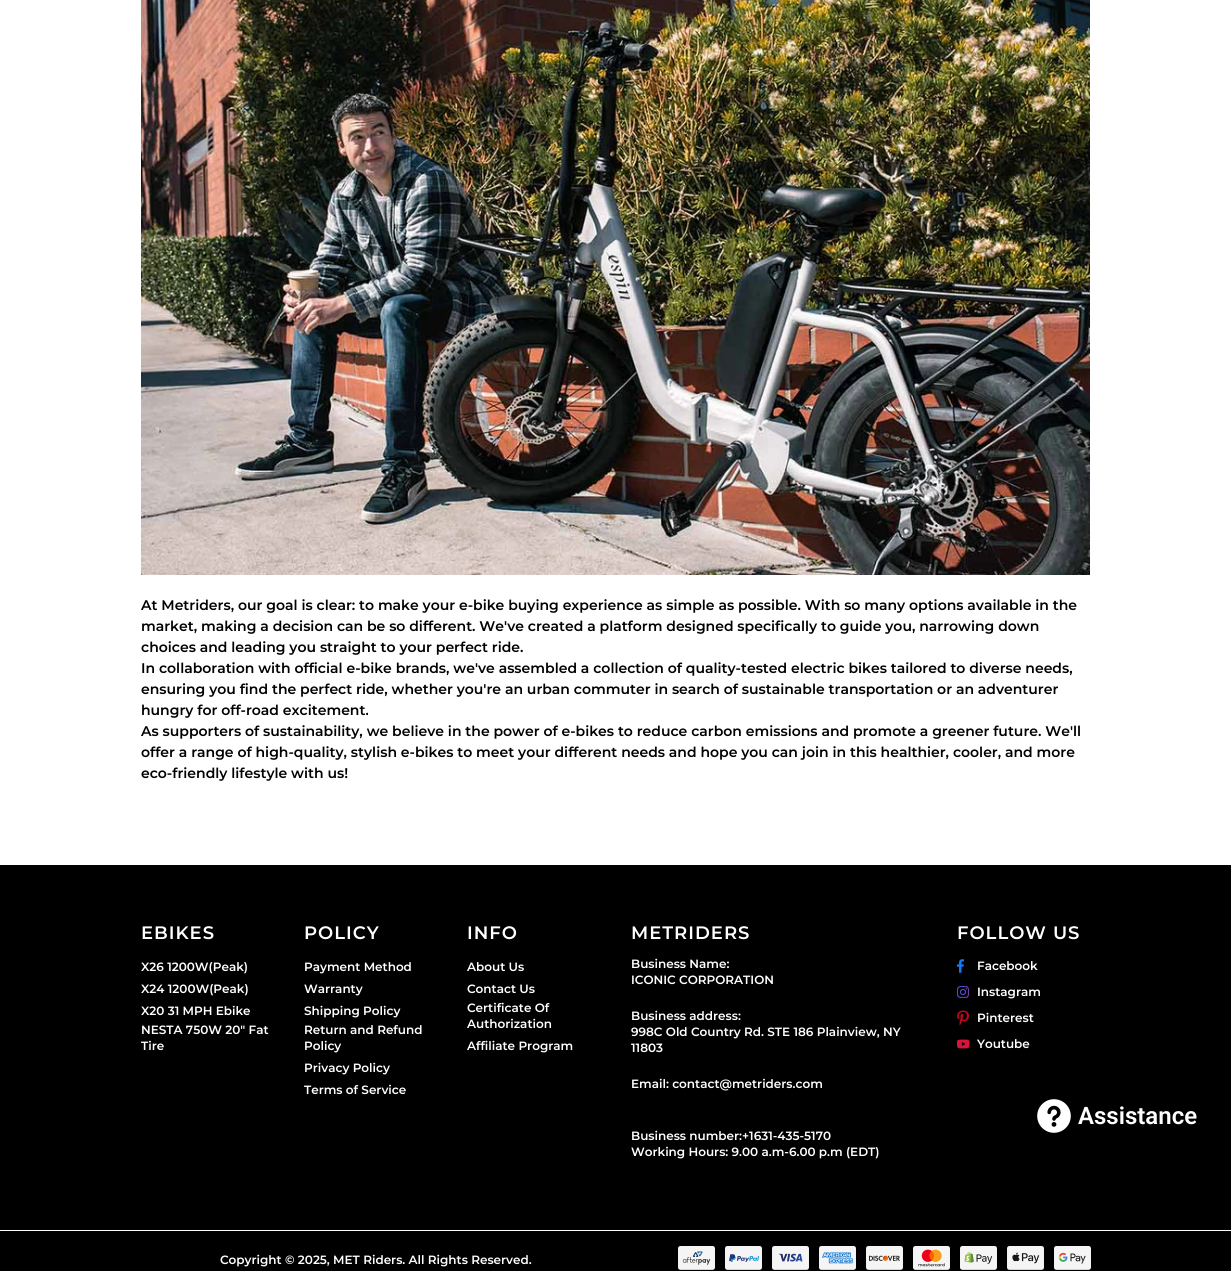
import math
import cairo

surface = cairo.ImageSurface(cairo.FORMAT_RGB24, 1231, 1271)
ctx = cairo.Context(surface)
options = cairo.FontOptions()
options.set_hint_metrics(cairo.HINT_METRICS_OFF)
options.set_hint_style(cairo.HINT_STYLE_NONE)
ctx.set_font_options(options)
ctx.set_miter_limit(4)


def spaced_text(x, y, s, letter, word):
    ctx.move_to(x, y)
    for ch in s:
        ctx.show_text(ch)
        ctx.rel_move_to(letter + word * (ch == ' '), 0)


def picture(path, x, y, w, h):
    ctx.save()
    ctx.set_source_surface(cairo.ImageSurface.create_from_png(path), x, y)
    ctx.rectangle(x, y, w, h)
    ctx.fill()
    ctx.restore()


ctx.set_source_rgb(1, 1, 1)
ctx.paint()
picture("img1.png", 141, 0, 949, 575)
ctx.select_font_face("Montserrat SemiBold")
ctx.set_font_size(14)
ctx.set_source_rgb(0, 0, 0)
ctx.move_to(141, 610)
ctx.show_text("At Metriders, our goal is clear: to make your e-bike buying experience as simple as possible. With so many options available in the")
ctx.move_to(141, 631)
ctx.show_text("market, making a decision can be so different. We've created a platform designed specifically to guide you, narrowing down")
ctx.move_to(141, 652)
ctx.show_text("choices and leading you straight to your perfect ride.")
ctx.move_to(141, 673)
ctx.show_text("In collaboration with official e-bike brands, we've assembled a collection of quality-tested electric bikes tailored to diverse needs,")
ctx.move_to(141, 694)
ctx.show_text("ensuring you find the perfect ride, whether you're an urban commuter in search of sustainable transportation or an adventurer")
ctx.move_to(141, 715)
ctx.show_text("hungry for off-road excitement.")
ctx.move_to(141, 736)
ctx.show_text("As supporters of sustainability, we believe in the power of e-bikes to reduce carbon emissions and promote a greener future. We'll")
ctx.move_to(141, 757)
ctx.show_text("offer a range of high-quality, stylish e-bikes to meet your different needs and hope you can join in this healthier, cooler, and more")
ctx.move_to(141, 778)
ctx.show_text("eco-friendly lifestyle with us!")
ctx.rectangle(0, 865, 1231, 406)
ctx.fill()
ctx.set_font_size(18)
ctx.set_source_rgb(1, 1, 1)
spaced_text(141, 939, "EBIKES", 1, 0)
ctx.set_font_size(12)
ctx.move_to(141, 971)
ctx.show_text("X26 1200W(Peak)")
ctx.move_to(141, 993)
ctx.show_text("X24 1200W(Peak)")
ctx.move_to(141, 1015)
ctx.show_text("X20 31 MPH Ebike")
ctx.move_to(141, 1034)
ctx.show_text("NESTA 750W 20\" Fat")
ctx.move_to(141, 1050)
ctx.show_text("Tire")
ctx.set_font_size(18)
spaced_text(304, 939, "POLICY", 1, 0)
ctx.set_font_size(12)
ctx.move_to(304, 971)
ctx.show_text("Payment Method")
ctx.move_to(304, 993)
ctx.show_text("Warranty")
ctx.move_to(304, 1015)
ctx.show_text("Shipping Policy")
ctx.move_to(304, 1034)
ctx.show_text("Return and Refund")
ctx.move_to(304, 1050)
ctx.show_text("Policy")
ctx.move_to(304, 1072)
ctx.show_text("Privacy Policy")
ctx.move_to(304, 1094)
ctx.show_text("Terms of Service")
ctx.set_font_size(18)
spaced_text(467, 939, "INFO", 1, 0)
ctx.set_font_size(12)
ctx.move_to(467, 971)
ctx.show_text("About Us")
ctx.move_to(467, 993)
ctx.show_text("Contact Us")
ctx.move_to(467, 1012)
ctx.show_text("Certificate Of")
ctx.move_to(467, 1028)
ctx.show_text("Authorization")
ctx.move_to(467, 1050)
ctx.show_text("Affiliate Program")
ctx.set_font_size(18)
spaced_text(631, 939, "METRIDERS", 1, 0)
ctx.set_font_size(12)
ctx.move_to(631, 968)
ctx.show_text("Business Name:")
ctx.move_to(631, 984)
ctx.show_text("ICONIC CORPORATION")
ctx.move_to(631, 1020)
ctx.show_text("Business address:")
ctx.move_to(631, 1036)
ctx.show_text("998C Old Country Rd. STE 186 Plainview, NY")
ctx.move_to(631, 1052)
ctx.show_text("11803")
ctx.move_to(631, 1088)
ctx.show_text("Email: contact@metriders.com")
ctx.move_to(631, 1140)
ctx.show_text("Business number:+1631-435-5170")
ctx.move_to(631, 1156)
ctx.show_text("Working Hours: 9.00 a.m-6.00 p.m (EDT)")
ctx.set_font_size(18)
spaced_text(957, 939, "FOLLOW US", 1, 0)
picture("img2.png", 957, 959, 7, 14)
ctx.set_font_size(12)
ctx.move_to(977, 970)
ctx.show_text("Facebook")
picture("img3.png", 957, 986, 12, 12)
ctx.move_to(977, 996)
ctx.show_text("Instagram")
picture("img4.png", 957, 1010, 12, 16)
ctx.move_to(977, 1022)
ctx.show_text("Pinterest")
picture("img5.png", 957, 1039, 13, 10)
ctx.move_to(977, 1048)
ctx.show_text("Youtube")
ctx.rectangle(0, 1230, 1231, 1)
ctx.fill()
ctx.move_to(220, 1264)
ctx.show_text("Copyright © 2025, MET Riders. All Rights Reserved.")
picture("img6.png", 678, 1246, 37, 24)
picture("img7.png", 725, 1246, 37, 24)
picture("img8.png", 772, 1246, 37, 24)
picture("img9.png", 819, 1246, 37, 24)
picture("img10.png", 866, 1246, 37, 24)
picture("img11.png", 913, 1246, 37, 24)
picture("img12.png", 960, 1246, 37, 24)
picture("img13.png", 1007, 1246, 37, 24)
picture("img14.png", 1054, 1246, 37, 24)
picture("img15.png", 1037, 1099, 34, 34)
ctx.select_font_face("Roboto SemiBold")
ctx.set_font_size(24)
ctx.move_to(1078, 1124)
ctx.show_text("Assistance")
surface.write_to_png("page.png")
